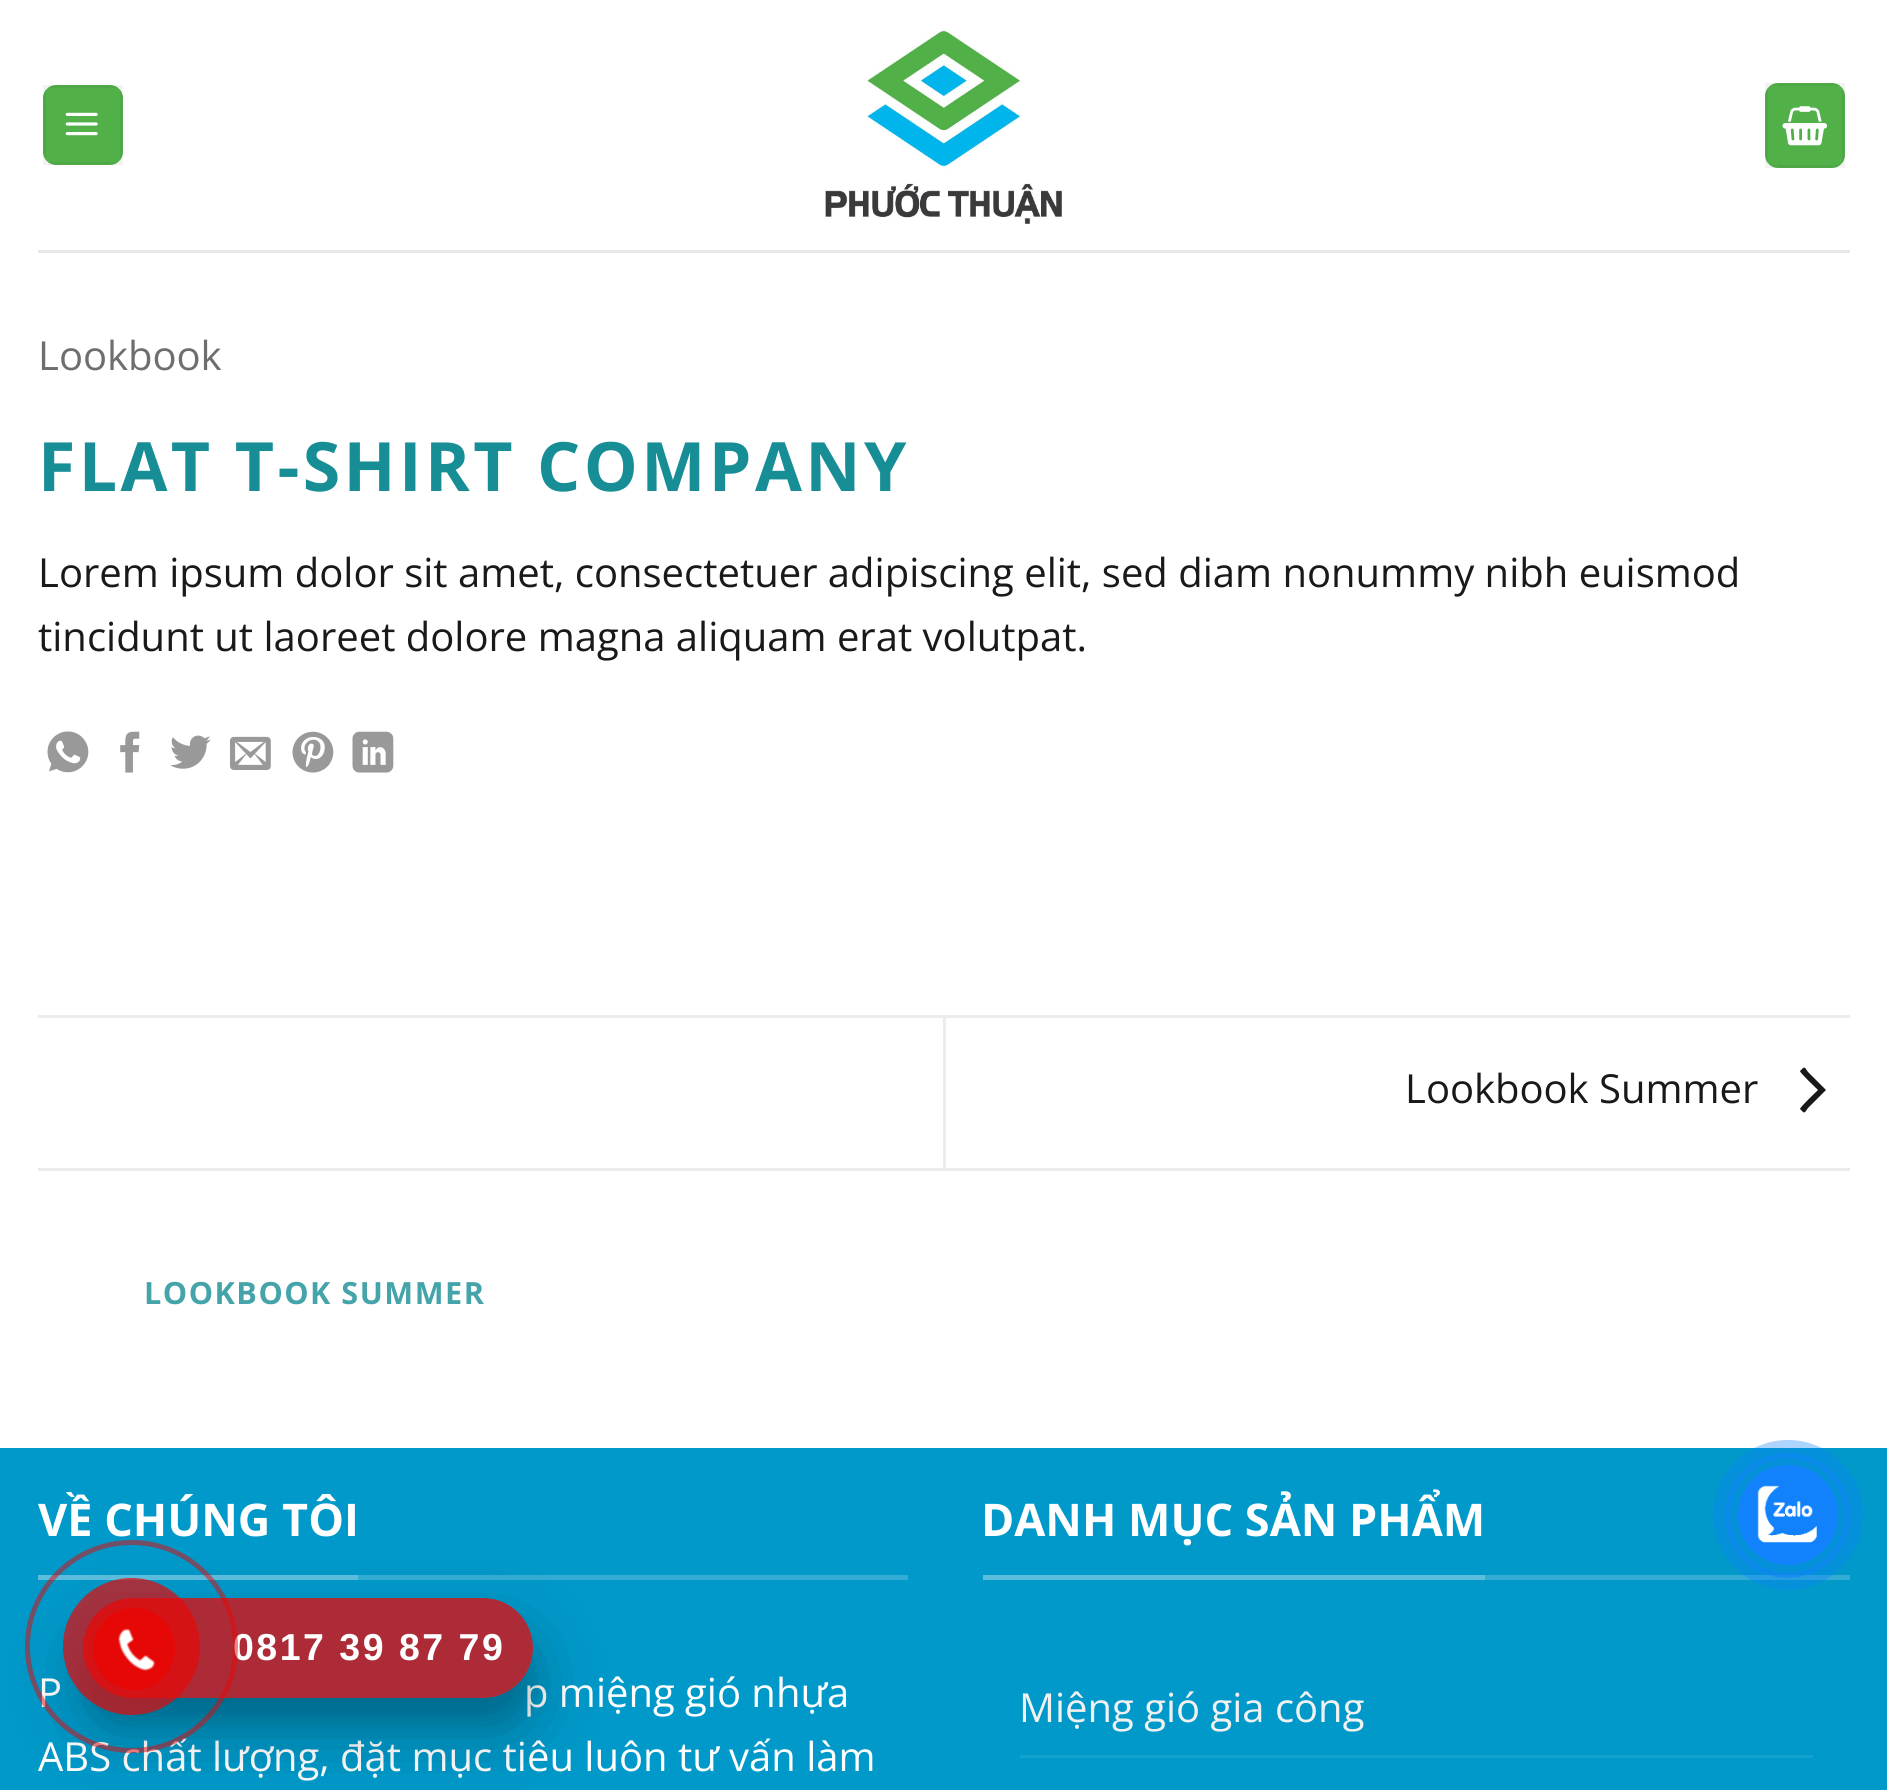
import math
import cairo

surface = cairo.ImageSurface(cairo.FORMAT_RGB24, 1887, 1790)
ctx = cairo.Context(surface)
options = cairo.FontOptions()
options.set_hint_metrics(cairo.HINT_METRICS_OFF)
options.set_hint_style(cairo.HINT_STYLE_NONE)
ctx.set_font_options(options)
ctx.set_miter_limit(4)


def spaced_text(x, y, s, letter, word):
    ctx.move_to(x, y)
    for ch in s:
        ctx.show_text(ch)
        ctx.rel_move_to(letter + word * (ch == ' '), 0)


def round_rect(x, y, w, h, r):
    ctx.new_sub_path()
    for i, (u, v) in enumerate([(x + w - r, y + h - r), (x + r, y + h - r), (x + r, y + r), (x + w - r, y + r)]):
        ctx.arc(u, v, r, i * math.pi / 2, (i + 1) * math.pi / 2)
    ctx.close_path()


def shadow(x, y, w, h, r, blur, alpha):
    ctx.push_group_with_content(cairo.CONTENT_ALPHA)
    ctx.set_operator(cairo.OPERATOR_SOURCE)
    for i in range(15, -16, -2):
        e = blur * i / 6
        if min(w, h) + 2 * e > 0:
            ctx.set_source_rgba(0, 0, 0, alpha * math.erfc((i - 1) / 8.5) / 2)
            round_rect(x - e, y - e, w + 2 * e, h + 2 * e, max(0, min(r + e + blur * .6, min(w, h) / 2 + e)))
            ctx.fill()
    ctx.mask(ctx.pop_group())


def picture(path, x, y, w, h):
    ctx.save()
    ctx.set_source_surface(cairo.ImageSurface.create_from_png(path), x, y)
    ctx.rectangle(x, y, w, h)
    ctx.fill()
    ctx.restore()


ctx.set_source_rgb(1, 1, 1)
ctx.paint()
ctx.set_source_rgb(0.318, 0.69, 0.282)
round_rect(43, 85, 80, 80, 13)
ctx.fill()
ctx.rectangle(44.5, 86.5, 77, 77)
ctx.set_source_rgba(0, 0, 0, 0.05)
ctx.set_line_width(3)
ctx.stroke()
picture("img1.png", 65, 112, 33, 24)
picture("img2.png", 825, 30, 237, 194)
ctx.set_source_rgb(0.318, 0.69, 0.282)
round_rect(1765, 83, 80, 85, 13)
ctx.fill()
ctx.rectangle(1766.5, 84.5, 77, 82)
ctx.set_source_rgba(0, 0, 0, 0.05)
ctx.stroke()
picture("img3.png", 1782, 106, 45, 40)
ctx.set_source_rgb(0.91, 0.91, 0.91)
ctx.rectangle(38, 250, 1812, 3)
ctx.fill()
ctx.select_font_face("Open Sans")
ctx.set_font_size(40)
ctx.set_source_rgb(0.431, 0.431, 0.431)
ctx.move_to(38, 370)
ctx.show_text("Lookbook")
ctx.select_font_face("Open Sans", cairo.FONT_SLANT_NORMAL, cairo.FONT_WEIGHT_BOLD)
ctx.set_font_size(68)
ctx.set_source_rgb(0.09, 0.553, 0.584)
spaced_text(38, 491, "FLAT T-SHIRT COMPANY", 3.4, 0)
ctx.select_font_face("Open Sans")
ctx.set_font_size(40)
ctx.set_source_rgb(0.098, 0.098, 0.098)
ctx.move_to(38, 587)
ctx.show_text("Lorem ipsum dolor sit amet, consectetuer adipiscing elit, sed diam nonummy nibh euismod")
ctx.move_to(38, 651)
ctx.show_text("tincidunt ut laoreet dolore magna aliquam erat volutpat.")
picture("img4.png", 47, 731, 42, 42)
picture("img5.png", 120, 731, 20, 42)
picture("img6.png", 170, 735, 41, 34)
picture("img7.png", 230, 736, 41, 34)
picture("img8.png", 292, 731, 42, 42)
picture("img9.png", 352, 731, 42, 42)
ctx.set_source_rgb(0.925, 0.925, 0.925)
ctx.rectangle(38, 1015, 1812, 3)
ctx.fill()
ctx.rectangle(38, 1168, 1812, 3)
ctx.fill()
ctx.rectangle(943, 1018, 3, 150)
ctx.fill()
ctx.set_source_rgb(0.098, 0.098, 0.098)
ctx.move_to(1405, 1103)
ctx.show_text("Lookbook Summer")
ctx.new_path()
ctx.move_to(1826, 1090)
ctx.line_to(1808, 1108)
ctx.curve_to(1805, 1112, 1805, 1114, 1802, 1111)
ctx.line_to(1800, 1109)
ctx.curve_to(1800, 1107, 1816, 1092, 1818, 1090)
ctx.curve_to(1816, 1088, 1800, 1073, 1800, 1071)
ctx.line_to(1802, 1069)
ctx.curve_to(1805, 1066, 1805, 1068, 1808, 1072)
ctx.close_path()
ctx.fill()
ctx.select_font_face("Open Sans", cairo.FONT_SLANT_NORMAL, cairo.FONT_WEIGHT_BOLD)
ctx.set_font_size(30.6)
ctx.set_source_rgb(0.271, 0.643, 0.667)
spaced_text(144, 1304, "LOOKBOOK SUMMER", 1.5, 0)
ctx.set_source_rgb(0, 0.6, 0.788)
ctx.rectangle(0, 1448, 1887, 342)
ctx.fill()
ctx.set_source_rgb(0.2, 0.678, 0.831)
ctx.rectangle(358, 1575, 550, 5)
ctx.fill()
ctx.set_source_rgb(0.361, 0.741, 0.867)
ctx.rectangle(38, 1575, 320, 5)
ctx.fill()
ctx.set_font_size(45)
ctx.set_source_rgb(1, 1, 1)
ctx.move_to(38, 1536)
ctx.show_text("VỀ CHÚNG TÔI")
ctx.select_font_face("Open Sans")
ctx.set_font_size(40)
ctx.move_to(38, 1707)
ctx.show_text("P")
ctx.move_to(524, 1707)
ctx.show_text("p miệng gió nhựa")
ctx.move_to(38, 1771)
ctx.show_text("ABS chất lượng, đặt mục tiêu luôn tư vấn làm")
ctx.set_source_rgb(0.2, 0.678, 0.831)
ctx.rectangle(1485, 1575, 365, 5)
ctx.fill()
ctx.set_source_rgb(0.361, 0.741, 0.867)
ctx.rectangle(983, 1575, 502, 5)
ctx.fill()
ctx.select_font_face("Open Sans", cairo.FONT_SLANT_NORMAL, cairo.FONT_WEIGHT_BOLD)
ctx.set_font_size(45)
ctx.set_source_rgb(1, 1, 1)
ctx.move_to(981, 1536)
ctx.show_text("DANH MỤC SẢN PHẨM")
ctx.select_font_face("Open Sans")
ctx.set_font_size(40)
ctx.set_source_rgb(0.945, 0.945, 0.945)
ctx.move_to(1019, 1722)
ctx.show_text("Miệng gió gia công")
ctx.set_source_rgb(0.078, 0.631, 0.804)
ctx.rectangle(1020, 1755, 793, 3)
ctx.fill()
ctx.arc(1787.5, 1515.5, 60, 0, 2 * math.pi)
ctx.set_source_rgba(0.067, 0.51, 0.988, 0.5)
ctx.set_line_width(5)
ctx.stroke()
ctx.set_source_rgba(0.067, 0.51, 0.988, 0.34)
ctx.arc(1788, 1515, 75, 0, 2 * math.pi)
ctx.fill()
ctx.set_source_rgb(0.067, 0.51, 0.988)
ctx.arc(1788, 1515, 50, 0, 2 * math.pi)
ctx.fill()
picture("img10.png", 1757, 1485, 60, 58)
ctx.save()
ctx.set_fill_rule(cairo.FILL_RULE_EVEN_ODD)
ctx.new_path()
ctx.move_to(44, 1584)
ctx.line_to(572, 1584)
ctx.line_to(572, 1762)
ctx.line_to(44, 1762)
ctx.close_path()
ctx.move_to(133, 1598)
ctx.line_to(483, 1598)
ctx.curve_to(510.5, 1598, 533, 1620.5, 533, 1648)
ctx.curve_to(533, 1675.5, 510.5, 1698, 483, 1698)
ctx.line_to(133, 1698)
ctx.curve_to(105.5, 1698, 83, 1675.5, 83, 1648)
ctx.curve_to(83, 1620.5, 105.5, 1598, 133, 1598)
ctx.close_path()
ctx.clip()
ctx.set_source_rgb(0, 0, 0)
shadow(83, 1623, 450, 100, 50, 12.5, 0.1)
ctx.restore()
ctx.save()
ctx.set_fill_rule(cairo.FILL_RULE_EVEN_ODD)
ctx.new_path()
ctx.move_to(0, 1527)
ctx.line_to(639, 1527)
ctx.line_to(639, 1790)
ctx.line_to(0, 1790)
ctx.close_path()
ctx.move_to(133, 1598)
ctx.line_to(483, 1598)
ctx.curve_to(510.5, 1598, 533, 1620.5, 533, 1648)
ctx.curve_to(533, 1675.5, 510.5, 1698, 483, 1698)
ctx.line_to(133, 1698)
ctx.curve_to(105.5, 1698, 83, 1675.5, 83, 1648)
ctx.curve_to(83, 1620.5, 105.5, 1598, 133, 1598)
ctx.close_path()
ctx.clip()
ctx.set_source_rgb(0, 0, 0)
shadow(83, 1633, 450, 100, 50, 35, 0.25)
ctx.restore()
ctx.set_source_rgba(0.902, 0.031, 0.031, 0.75)
round_rect(83, 1598, 450, 100, 50)
ctx.fill()
ctx.select_font_face("Liberation Sans", cairo.FONT_SLANT_NORMAL, cairo.FONT_WEIGHT_BOLD)
ctx.set_font_size(37.5)
ctx.set_source_rgb(1, 1, 1)
spaced_text(233, 1660, "0817 39 87 79", 2.5, 0)
ctx.new_path()
ctx.arc(131.5, 1646.5, 104, 0, 2 * math.pi)
ctx.set_source_rgba(0.902, 0.031, 0.031, 0.5)
ctx.stroke()
ctx.set_source_rgba(0.902, 0.031, 0.031, 0.7)
ctx.arc(131.5, 1646.5, 68.5, 0, 2 * math.pi)
ctx.fill()
ctx.set_source_rgb(0.902, 0.031, 0.031)
ctx.arc(134, 1649, 41, 0, 2 * math.pi)
ctx.fill()
picture("img11.png", 118, 1628, 37, 43)
surface.write_to_png("page.png")
